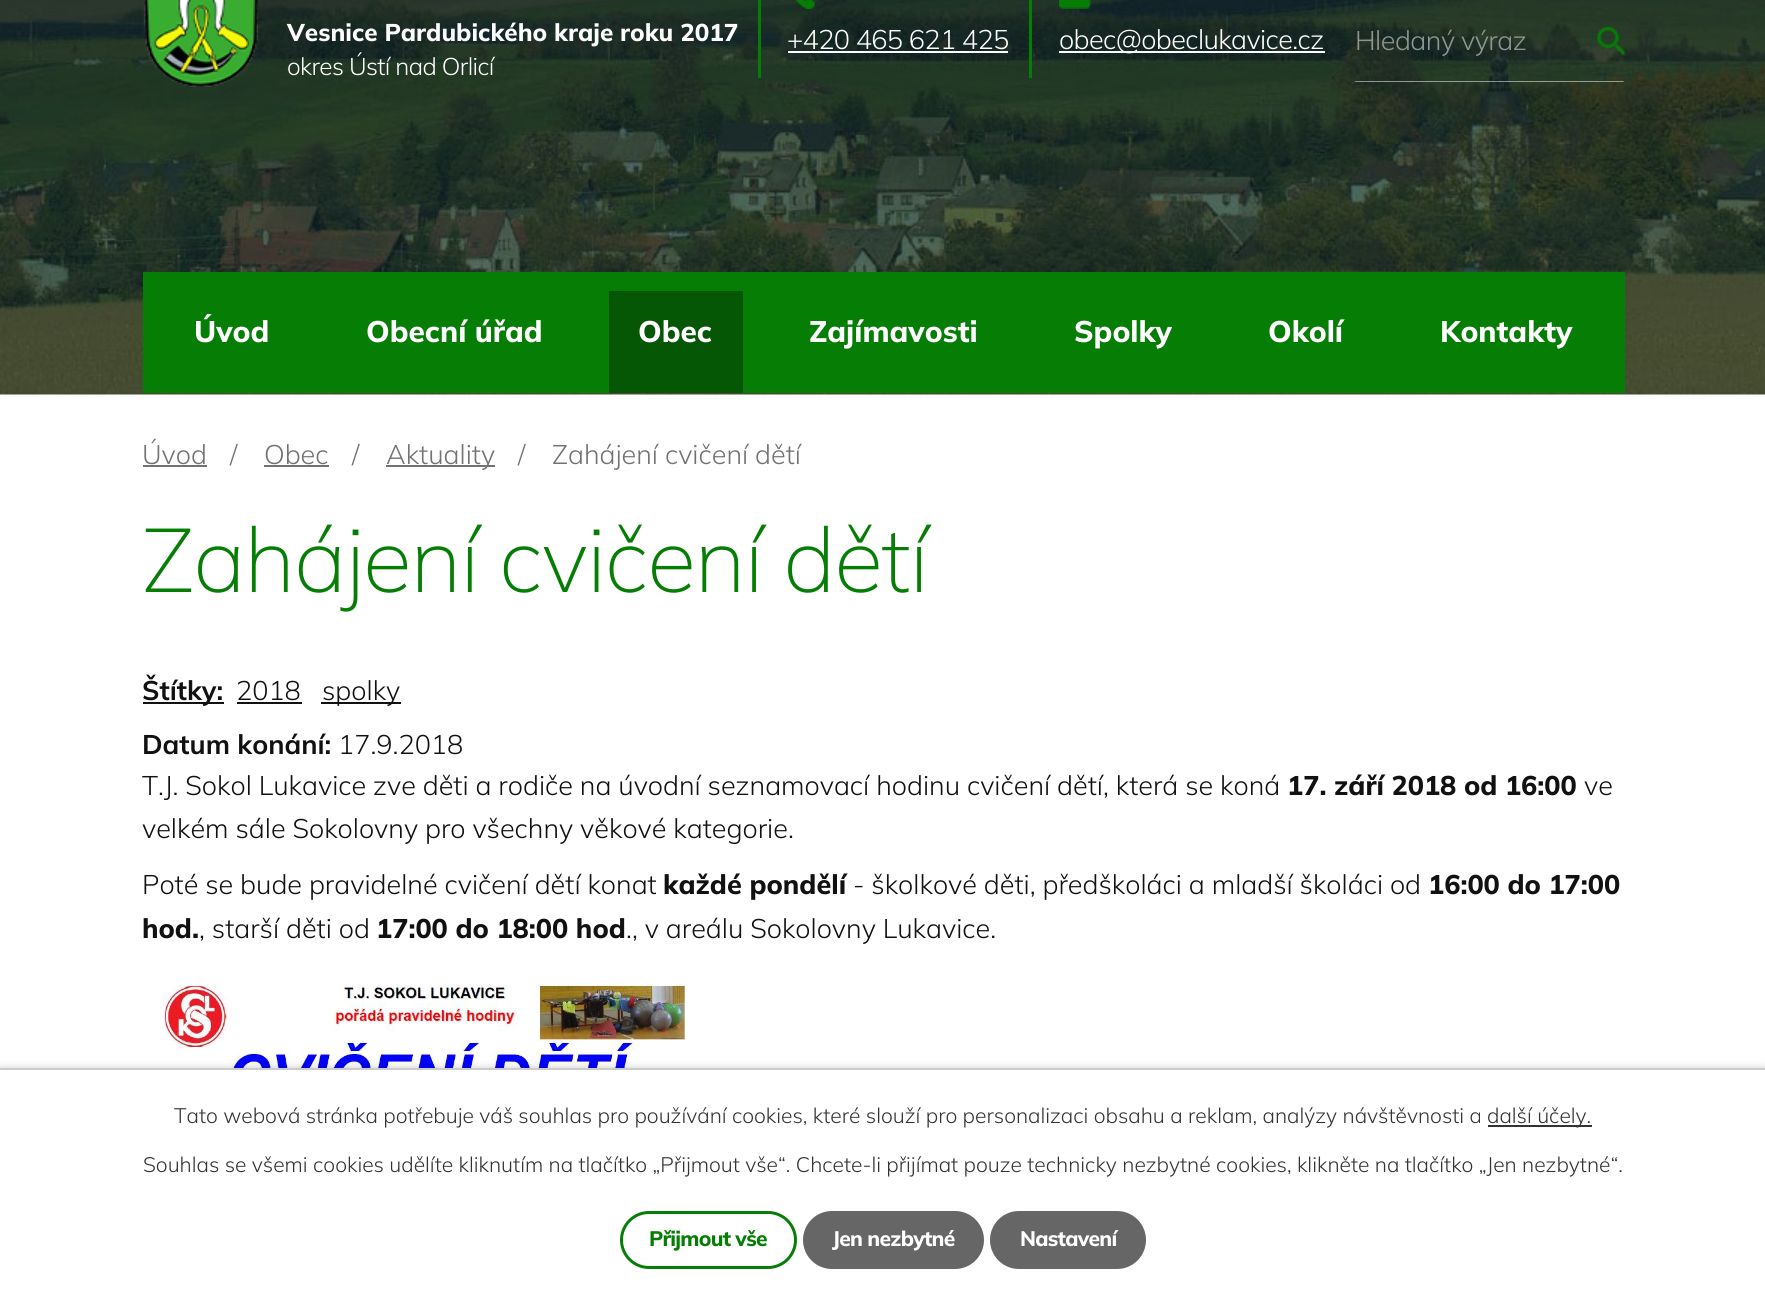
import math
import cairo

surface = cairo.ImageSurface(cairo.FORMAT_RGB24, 1765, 1297)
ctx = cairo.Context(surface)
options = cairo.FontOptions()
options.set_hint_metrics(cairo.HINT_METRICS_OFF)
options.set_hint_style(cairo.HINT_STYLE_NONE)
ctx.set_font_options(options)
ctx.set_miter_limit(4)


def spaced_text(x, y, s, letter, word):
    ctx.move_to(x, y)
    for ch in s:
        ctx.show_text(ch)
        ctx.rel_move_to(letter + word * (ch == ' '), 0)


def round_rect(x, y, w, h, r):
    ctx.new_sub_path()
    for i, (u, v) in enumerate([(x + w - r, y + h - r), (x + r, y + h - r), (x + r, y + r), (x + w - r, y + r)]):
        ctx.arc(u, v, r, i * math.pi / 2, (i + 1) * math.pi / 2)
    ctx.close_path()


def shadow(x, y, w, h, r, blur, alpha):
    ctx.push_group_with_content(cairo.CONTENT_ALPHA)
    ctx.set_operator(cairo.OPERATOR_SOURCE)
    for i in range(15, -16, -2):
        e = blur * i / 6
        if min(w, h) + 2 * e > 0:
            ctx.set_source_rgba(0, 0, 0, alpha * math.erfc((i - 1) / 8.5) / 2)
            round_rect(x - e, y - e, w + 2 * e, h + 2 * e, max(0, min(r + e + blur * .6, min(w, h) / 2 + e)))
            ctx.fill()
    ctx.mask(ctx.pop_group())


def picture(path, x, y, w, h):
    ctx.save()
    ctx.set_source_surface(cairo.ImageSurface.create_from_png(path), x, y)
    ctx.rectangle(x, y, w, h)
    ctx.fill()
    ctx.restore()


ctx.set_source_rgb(1, 1, 1)
ctx.paint()
picture("img1.png", 0, 0, 1765, 395)
picture("img2.png", 143, 0, 115, 87)
ctx.select_font_face("Mulish ExtraBold")
ctx.set_font_size(24.25)
ctx.set_source_rgb(1, 1, 1)
ctx.move_to(287, 41)
ctx.show_text("Vesnice Pardubického kraje roku 2017")
ctx.select_font_face("Mulish Light")
spaced_text(287, 75, "okres Ústí nad Orlicí", -0.6, 0)
ctx.set_source_rgb(0.024, 0.494, 0.024)
ctx.rectangle(758, 0, 3, 78)
ctx.fill()
picture("img3.png", 795, 0, 20, 9)
ctx.set_font_size(27)
ctx.set_source_rgb(1, 1, 1)
spaced_text(787, 49, "+420 465 621 425", -0.6, 0)
ctx.rectangle(788, 51, 220, 2)
ctx.fill()
ctx.set_source_rgb(0.024, 0.494, 0.024)
ctx.rectangle(1029, 0, 3, 78)
ctx.fill()
picture("img4.png", 1059, 0, 32, 9)
ctx.set_source_rgb(1, 1, 1)
ctx.rectangle(1059, 51, 266, 2)
ctx.fill()
spaced_text(1059, 49, "obec@obeclukavice.cz", -0.6, 0)
ctx.set_source_rgba(1, 1, 1, 0.5)
ctx.new_path()
ctx.move_to(1624, 82)
ctx.line_to(1354, 82)
ctx.line_to(1356, 81)
ctx.line_to(1623, 81)
ctx.close_path()
ctx.fill()
ctx.set_source_rgb(0.557, 0.588, 0.573)
spaced_text(1355, 50, "Hledaný výraz", -0.5, 0)
picture("img5.png", 1597, 27, 28, 29)
ctx.set_source_rgb(0.024, 0.494, 0.024)
ctx.rectangle(143, 272, 1482, 121)
ctx.fill()
ctx.select_font_face("Mulish ExtraBold")
ctx.set_font_size(29.75)
ctx.set_source_rgb(1, 1, 1)
ctx.move_to(194, 342)
ctx.show_text("Úvod")
ctx.move_to(366, 342)
ctx.show_text("Obecní úřad")
ctx.set_source_rgb(0.02, 0.341, 0.02)
ctx.rectangle(609, 291, 134, 102)
ctx.fill()
ctx.set_source_rgb(1, 1, 1)
ctx.move_to(638, 342)
ctx.show_text("Obec")
ctx.move_to(809, 342)
ctx.show_text("Zajímavosti")
ctx.move_to(1074, 342)
ctx.show_text("Spolky")
ctx.move_to(1268, 342)
ctx.show_text("Okolí")
ctx.move_to(1440, 342)
ctx.show_text("Kontakty")
ctx.select_font_face("Mulish Light")
ctx.set_font_size(27)
ctx.set_source_rgb(0.447, 0.447, 0.447)
ctx.move_to(142, 464)
ctx.show_text("Úvod")
ctx.rectangle(143, 465, 64, 2)
ctx.fill()
ctx.move_to(230, 464)
ctx.show_text("/")
ctx.move_to(264, 464)
ctx.show_text("Obec")
ctx.rectangle(264, 465, 65, 2)
ctx.fill()
ctx.move_to(352, 464)
ctx.show_text("/")
ctx.rectangle(386, 465, 109, 2)
ctx.fill()
ctx.move_to(386, 464)
ctx.show_text("Aktuality")
ctx.move_to(518, 464)
ctx.show_text("/")
ctx.move_to(552, 464)
ctx.show_text("Zahájení cvičení dětí")
ctx.select_font_face("Mulish ExtraLight")
ctx.set_font_size(90)
ctx.set_source_rgb(0.024, 0.494, 0.024)
spaced_text(142, 592, "Zahájení cvičení dětí", -1.5, 0)
ctx.set_source_rgb(0.067, 0.067, 0.067)
ctx.rectangle(143, 702, 81, 2)
ctx.fill()
ctx.select_font_face("Mulish", cairo.FONT_SLANT_NORMAL, cairo.FONT_WEIGHT_BOLD)
ctx.set_font_size(27)
ctx.move_to(142, 700)
ctx.show_text("Štítky:")
ctx.select_font_face("Mulish Light")
ctx.move_to(236, 700)
ctx.show_text("2018")
ctx.rectangle(237, 702, 65, 2)
ctx.fill()
ctx.rectangle(321, 702, 80, 2)
ctx.fill()
ctx.move_to(322, 700)
ctx.show_text("spolky")
ctx.select_font_face("Mulish", cairo.FONT_SLANT_NORMAL, cairo.FONT_WEIGHT_BOLD)
ctx.move_to(142, 754)
ctx.show_text("Datum konání:")
ctx.select_font_face("Mulish Light")
ctx.move_to(338, 754)
ctx.show_text("17.9.2018")
ctx.move_to(142, 795)
ctx.show_text("T.J. Sokol Lukavice zve děti a rodiče na úvodní seznamovací hodinu cvičení dětí, která se koná")
ctx.select_font_face("Mulish ExtraBold")
ctx.move_to(1287, 795)
ctx.show_text("17. září 2018 od 16:00")
ctx.select_font_face("Mulish Light")
ctx.move_to(1584, 795)
ctx.show_text("ve")
ctx.move_to(142, 838)
ctx.show_text("velkém sále Sokolovny pro všechny věkové kategorie.")
ctx.move_to(142, 894)
ctx.show_text("Poté se bude pravidelné cvičení dětí konat")
ctx.select_font_face("Mulish ExtraBold")
ctx.move_to(663, 894)
ctx.show_text("každé pondělí")
ctx.select_font_face("Mulish Light")
ctx.move_to(853, 894)
ctx.show_text("- školkové děti, předškoláci a mladší školáci od")
ctx.select_font_face("Mulish ExtraBold")
ctx.move_to(1428, 894)
ctx.show_text("16:00 do 17:00")
ctx.move_to(142, 938)
ctx.show_text("hod.")
ctx.select_font_face("Mulish Light")
ctx.move_to(199, 938)
ctx.show_text(", starší děti od")
ctx.select_font_face("Mulish ExtraBold")
ctx.move_to(376, 938)
ctx.show_text("17:00 do 18:00 hod")
ctx.select_font_face("Mulish Light")
ctx.move_to(626, 938)
ctx.show_text("., v areálu Sokolovny Lukavice.")
picture("img6.png", 162, 984, 524, 84)
ctx.set_source_rgb(0, 0, 0)
shadow(0, 1068, 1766, 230, 0, 4, 0.2)
ctx.set_source_rgb(1, 1, 1)
ctx.rectangle(0, 1070, 1765, 227)
ctx.fill()
ctx.set_source_rgb(0.8, 0.8, 0.8)
ctx.rectangle(0, 1068, 1765, 2)
ctx.fill()
ctx.set_font_size(21)
ctx.set_source_rgb(0.2, 0.2, 0.2)
ctx.move_to(174, 1123)
ctx.show_text("Tato webová stránka potřebuje váš souhlas pro používání cookies, které slouží pro personalizaci obsahu a reklam, analýzy návštěvnosti a")
ctx.rectangle(1488, 1125, 104, 2)
ctx.fill()
ctx.move_to(1487, 1123)
ctx.show_text("další účely.")
ctx.move_to(143, 1172)
ctx.show_text("Souhlas se všemi cookies udělíte kliknutím na tlačítko „Přijmout vše“. Chcete-li přijímat pouze technicky nezbytné cookies, klikněte na tlačítko „Jen nezbytné“.")
round_rect(621.5, 1212.5, 174, 55, 27.5)
ctx.set_source_rgb(0.024, 0.494, 0.024)
ctx.set_line_width(3)
ctx.stroke()
ctx.select_font_face("Mulish ExtraBold")
spaced_text(649, 1246, "Přijmout vše", -0.75, 0)
ctx.set_source_rgb(0.4, 0.4, 0.4)
round_rect(804.5, 1212.5, 178, 55, 27.5)
ctx.fill_preserve()
ctx.stroke()
ctx.set_source_rgb(1, 1, 1)
spaced_text(832, 1246, "Jen nezbytné", -0.75, 0)
ctx.set_source_rgb(0.4, 0.4, 0.4)
round_rect(991.5, 1212.5, 153, 55, 27.5)
ctx.fill_preserve()
ctx.stroke()
ctx.set_source_rgb(1, 1, 1)
spaced_text(1020, 1246, "Nastavení", -0.75, 0)
surface.write_to_png("page.png")
